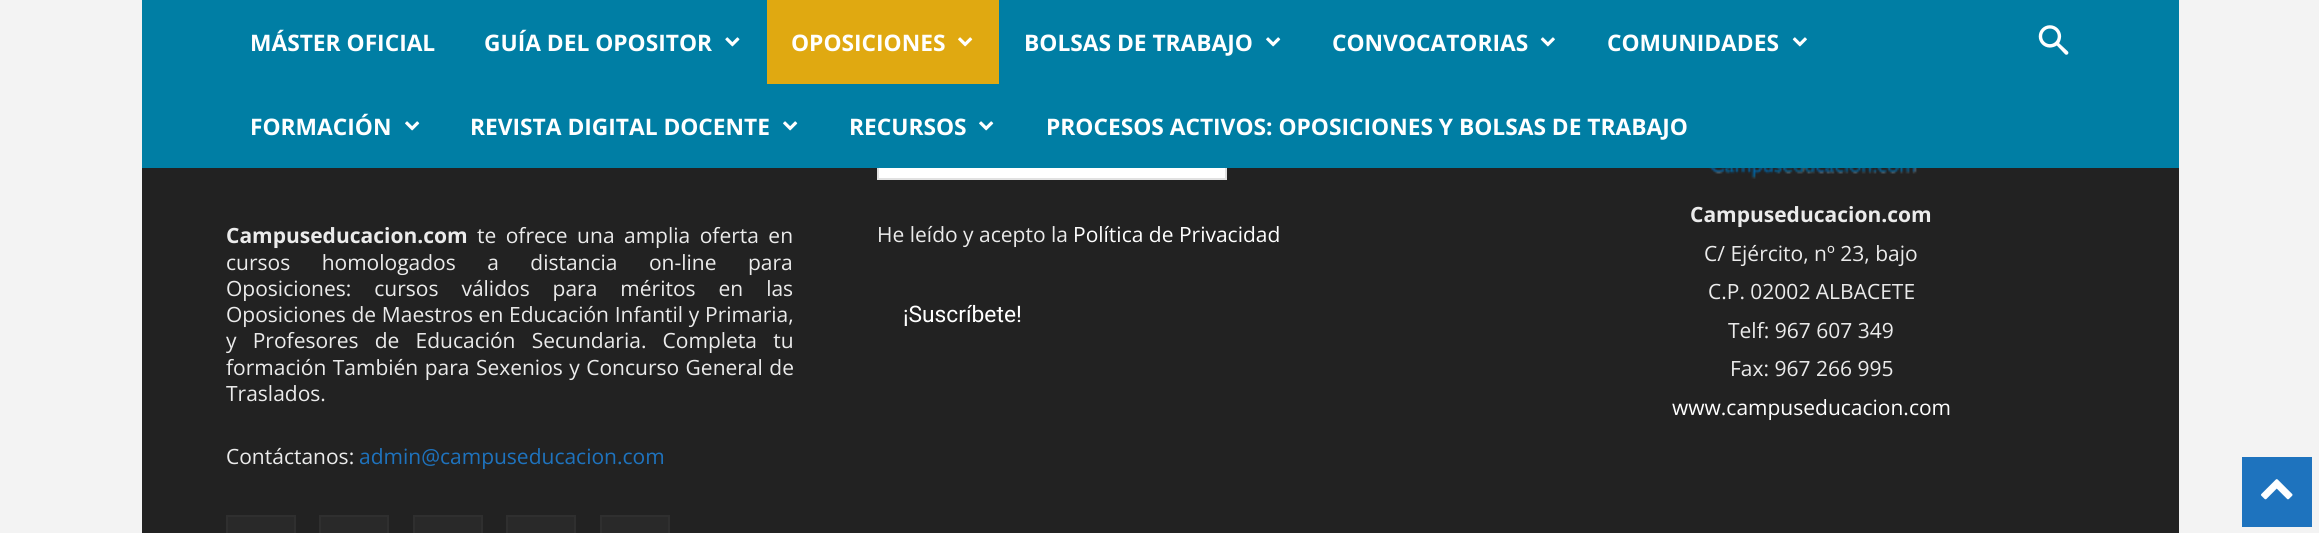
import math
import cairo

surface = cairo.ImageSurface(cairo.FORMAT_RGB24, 2319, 533)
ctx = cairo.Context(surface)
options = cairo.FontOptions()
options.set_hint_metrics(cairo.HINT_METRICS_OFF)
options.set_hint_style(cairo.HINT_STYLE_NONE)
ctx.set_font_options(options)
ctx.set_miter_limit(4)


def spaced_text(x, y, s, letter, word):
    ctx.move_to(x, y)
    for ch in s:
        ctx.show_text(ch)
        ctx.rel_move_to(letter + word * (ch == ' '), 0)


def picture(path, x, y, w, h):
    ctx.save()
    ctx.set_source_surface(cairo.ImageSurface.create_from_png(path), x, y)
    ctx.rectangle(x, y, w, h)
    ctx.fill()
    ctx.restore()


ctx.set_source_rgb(0.953, 0.953, 0.953)
ctx.paint()
ctx.set_source_rgb(0.133, 0.133, 0.133)
ctx.rectangle(142, 168, 2037, 365)
ctx.fill()
ctx.set_source_rgb(1, 1, 1)
ctx.rectangle(879, 168, 346, 10)
ctx.fill()
ctx.rectangle(878, 122, 348, 57)
ctx.set_source_rgb(0.882, 0.882, 0.882)
ctx.stroke()
ctx.set_source_rgb(0, 0.494, 0.643)
ctx.rectangle(142, 0, 2037, 168)
ctx.fill()
ctx.select_font_face("Open Sans", cairo.FONT_SLANT_NORMAL, cairo.FONT_WEIGHT_BOLD)
ctx.set_font_size(22.75)
ctx.set_source_rgb(1, 1, 1)
ctx.move_to(250, 51)
ctx.show_text("MÁSTER OFICIAL")
ctx.move_to(484, 51)
ctx.show_text("GUÍA DEL OPOSITOR")
picture("img1.png", 725, 37, 15, 10)
ctx.set_source_rgb(0.878, 0.663, 0.067)
ctx.rectangle(767, 0, 232, 84)
ctx.fill()
ctx.set_source_rgb(1, 1, 1)
ctx.move_to(791, 51)
ctx.show_text("OPOSICIONES")
picture("img2.png", 958, 37, 15, 10)
ctx.move_to(1024, 51)
ctx.show_text("BOLSAS DE TRABAJO")
picture("img3.png", 1266, 37, 15, 10)
ctx.move_to(1332, 51)
ctx.show_text("CONVOCATORIAS")
picture("img4.png", 1540, 37, 15, 10)
ctx.move_to(1607, 51)
ctx.show_text("COMUNIDADES")
picture("img4.png", 1792, 37, 15, 10)
ctx.move_to(250, 135)
ctx.show_text("FORMACIÓN")
picture("img3.png", 405, 121, 15, 10)
ctx.move_to(470, 135)
ctx.show_text("REVISTA DIGITAL DOCENTE")
picture("img3.png", 783, 121, 15, 10)
ctx.move_to(849, 135)
ctx.show_text("RECURSOS")
picture("img3.png", 979, 121, 15, 10)
ctx.move_to(1046, 135)
ctx.show_text("PROCESOS ACTIVOS: OPOSICIONES Y BOLSAS DE TRABAJO")
picture("img5.png", 2038, 25, 31, 30)
ctx.set_font_size(21)
ctx.set_source_rgb(0.918, 0.918, 0.918)
ctx.move_to(226, 243)
ctx.show_text("Campuseducacion.com")
ctx.select_font_face("Open Sans")
spaced_text(477, 243, "te ofrece una amplia oferta en", 0, 4)
spaced_text(226, 270, "cursos homologados a distancia on-line para", 0, 26)
spaced_text(226, 296, "Oposiciones: cursos válidos para méritos en las", 0, 17.5)
spaced_text(226, 322, "Oposiciones de Maestros en Educación Infantil y Primaria,", 0, 0.25)
spaced_text(226, 348, "y Profesores de Educación Secundaria. Completa tu", 0, 10.75)
spaced_text(226, 375, "formación También para Sexenios y Concurso General de", 0, 1)
ctx.move_to(226, 401)
ctx.show_text("Traslados.")
ctx.move_to(226, 464)
ctx.show_text("Contáctanos:")
ctx.set_source_rgb(0.118, 0.451, 0.745)
ctx.move_to(359, 464)
ctx.show_text("admin@campuseducacion.com")
ctx.set_source_rgb(0.161, 0.161, 0.161)
ctx.rectangle(227, 516, 68, 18)
ctx.fill_preserve()
ctx.set_source_rgb(0.184, 0.184, 0.184)
ctx.stroke()
ctx.set_source_rgb(0.161, 0.161, 0.161)
ctx.rectangle(320, 516, 68, 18)
ctx.fill_preserve()
ctx.set_source_rgb(0.184, 0.184, 0.184)
ctx.stroke()
ctx.set_source_rgb(0.161, 0.161, 0.161)
ctx.rectangle(414, 516, 68, 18)
ctx.fill_preserve()
ctx.set_source_rgb(0.184, 0.184, 0.184)
ctx.stroke()
ctx.set_source_rgb(0.161, 0.161, 0.161)
ctx.rectangle(507, 516, 68, 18)
ctx.fill_preserve()
ctx.set_source_rgb(0.184, 0.184, 0.184)
ctx.stroke()
ctx.set_source_rgb(0.161, 0.161, 0.161)
ctx.rectangle(601, 516, 68, 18)
ctx.fill_preserve()
ctx.set_source_rgb(0.184, 0.184, 0.184)
ctx.stroke()
ctx.set_source_rgb(0.918, 0.918, 0.918)
ctx.move_to(877, 242)
ctx.show_text("He leído y acepto la")
ctx.set_source_rgb(1, 1, 1)
ctx.move_to(1073, 242)
ctx.show_text("Política de Privacidad")
ctx.select_font_face("Roboto")
ctx.set_font_size(22.75)
ctx.move_to(903, 322)
ctx.show_text("¡Suscríbete!")
picture("img6.png", 1709, 168, 208, 11)
ctx.select_font_face("Open Sans", cairo.FONT_SLANT_NORMAL, cairo.FONT_WEIGHT_BOLD)
ctx.set_font_size(21)
ctx.set_source_rgb(0.918, 0.918, 0.918)
ctx.move_to(1690, 222)
ctx.show_text("Campuseducacion.com")
ctx.select_font_face("Open Sans")
ctx.move_to(1704, 261)
ctx.show_text("C/ Ejército, nº 23, bajo")
ctx.move_to(1708, 299)
ctx.show_text("C.P. 02002 ALBACETE")
ctx.move_to(1728, 338)
ctx.show_text("Telf: 967 607 349")
ctx.move_to(1730, 376)
ctx.show_text("Fax: 967 266 995")
ctx.set_source_rgb(1, 1, 1)
ctx.move_to(1672, 415)
ctx.show_text("www.campuseducacion.com")
ctx.set_source_rgb(0.118, 0.451, 0.745)
ctx.rectangle(2242, 457, 70, 70)
ctx.fill()
picture("img7.png", 2261, 479, 32, 21)
surface.write_to_png("page.png")
